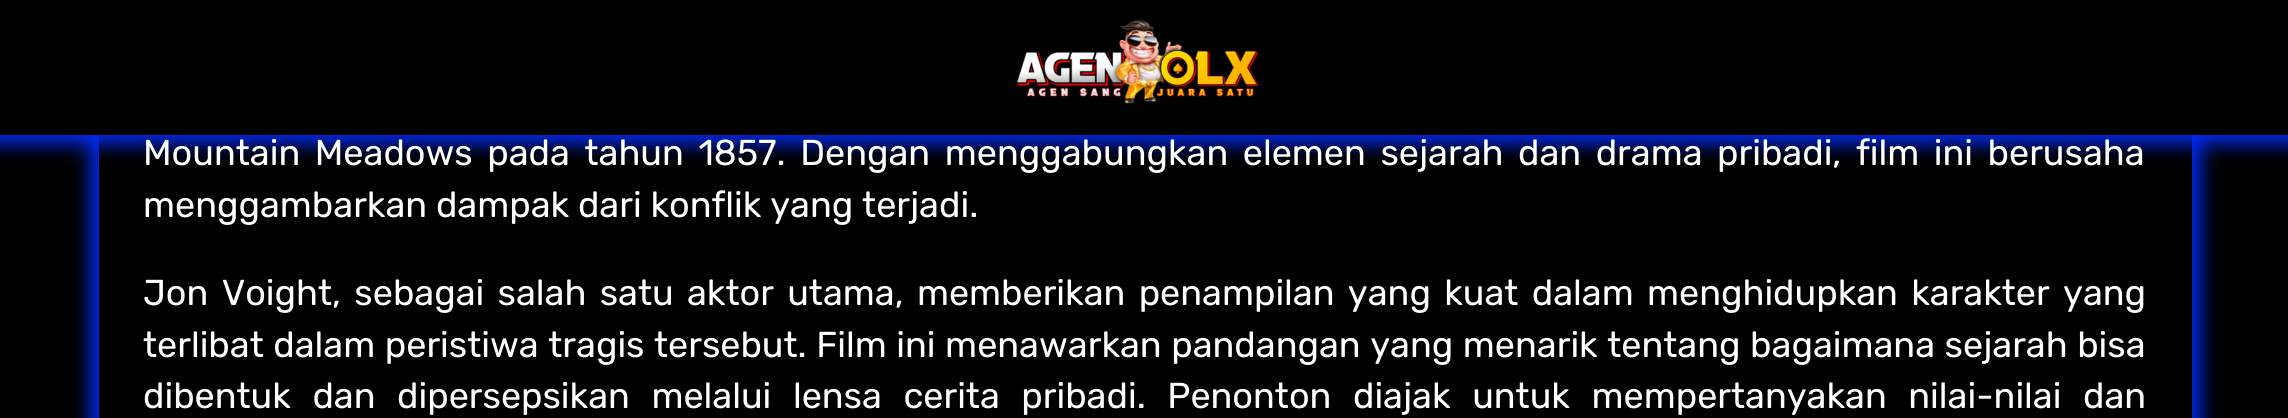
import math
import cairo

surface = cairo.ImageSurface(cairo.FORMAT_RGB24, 2288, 418)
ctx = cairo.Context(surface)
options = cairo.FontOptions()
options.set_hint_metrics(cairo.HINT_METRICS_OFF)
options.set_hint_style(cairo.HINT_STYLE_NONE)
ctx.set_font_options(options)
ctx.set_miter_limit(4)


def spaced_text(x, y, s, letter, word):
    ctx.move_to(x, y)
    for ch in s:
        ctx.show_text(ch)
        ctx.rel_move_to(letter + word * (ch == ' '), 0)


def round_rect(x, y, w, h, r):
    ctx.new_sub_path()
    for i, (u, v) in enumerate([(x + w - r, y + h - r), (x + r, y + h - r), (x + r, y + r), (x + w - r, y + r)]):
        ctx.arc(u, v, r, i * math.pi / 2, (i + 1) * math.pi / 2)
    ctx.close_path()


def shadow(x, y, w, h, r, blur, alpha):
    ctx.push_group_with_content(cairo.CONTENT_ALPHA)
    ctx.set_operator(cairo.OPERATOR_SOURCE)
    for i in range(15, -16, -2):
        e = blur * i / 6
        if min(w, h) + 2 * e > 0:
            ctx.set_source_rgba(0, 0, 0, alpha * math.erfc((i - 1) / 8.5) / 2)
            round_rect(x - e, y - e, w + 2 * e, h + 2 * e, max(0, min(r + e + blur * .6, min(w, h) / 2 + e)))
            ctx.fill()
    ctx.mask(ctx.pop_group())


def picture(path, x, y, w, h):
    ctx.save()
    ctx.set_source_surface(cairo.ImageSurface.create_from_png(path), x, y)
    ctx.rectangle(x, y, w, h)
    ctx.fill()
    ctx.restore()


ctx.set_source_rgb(0, 0, 0)
ctx.paint()
ctx.set_source_rgb(0, 0.165, 0.945)
shadow(-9, -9, 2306, 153, 0, 9, 1)
ctx.save()
ctx.set_fill_rule(cairo.FILL_RULE_EVEN_ODD)
ctx.new_path()
ctx.move_to(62, 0)
ctx.line_to(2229, 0)
ctx.line_to(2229, 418)
ctx.line_to(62, 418)
ctx.close_path()
ctx.move_to(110, -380)
ctx.line_to(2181, -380)
ctx.curve_to(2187, -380, 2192, -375, 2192, -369)
ctx.line_to(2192, 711)
ctx.curve_to(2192, 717, 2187, 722, 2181, 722)
ctx.line_to(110, 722)
ctx.curve_to(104, 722, 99, 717, 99, 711)
ctx.line_to(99, -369)
ctx.curve_to(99, -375, 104, -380, 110, -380)
ctx.close_path()
ctx.clip()
shadow(90, -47, 2111, 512, 20, 9, 1)
ctx.restore()
ctx.set_source_rgb(0, 0, 0)
ctx.rectangle(0, 0, 2288, 135)
ctx.fill()
picture("img1.png", 1016, 18, 243, 86)
ctx.select_font_face("Rubik")
ctx.set_font_size(36)
ctx.set_source_rgb(1, 1, 1)
spaced_text(143, 165, "Mountain Meadows pada tahun 1857. Dengan menggabungkan elemen sejarah dan drama pribadi, film ini berusaha", 0, 5.75)
ctx.move_to(143, 217)
ctx.show_text("menggambarkan dampak dari konflik yang terjadi.")
spaced_text(143, 305, "Jon Voight, sebagai salah satu aktor utama, memberikan penampilan yang kuat dalam menghidupkan karakter yang", 0, 4.5)
spaced_text(143, 357, "terlibat dalam peristiwa tragis tersebut. Film ini menawarkan pandangan yang menarik tentang bagaimana sejarah bisa", 0, 0.75)
spaced_text(143, 408, "dibentuk dan dipersepsikan melalui lensa cerita pribadi. Penonton diajak untuk mempertanyakan nilai-nilai dan", 0, 12.75)
surface.write_to_png("page.png")
